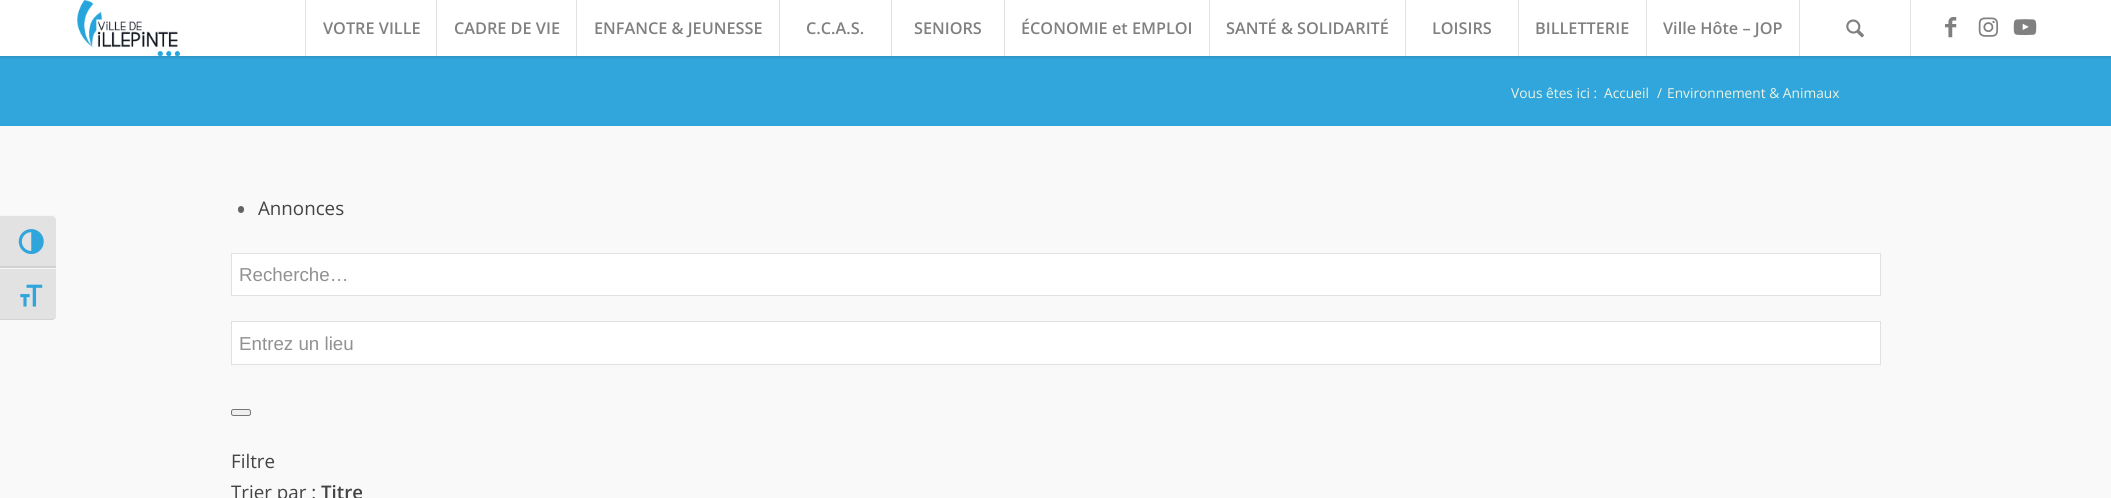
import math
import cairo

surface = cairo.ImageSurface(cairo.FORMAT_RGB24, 2111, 498)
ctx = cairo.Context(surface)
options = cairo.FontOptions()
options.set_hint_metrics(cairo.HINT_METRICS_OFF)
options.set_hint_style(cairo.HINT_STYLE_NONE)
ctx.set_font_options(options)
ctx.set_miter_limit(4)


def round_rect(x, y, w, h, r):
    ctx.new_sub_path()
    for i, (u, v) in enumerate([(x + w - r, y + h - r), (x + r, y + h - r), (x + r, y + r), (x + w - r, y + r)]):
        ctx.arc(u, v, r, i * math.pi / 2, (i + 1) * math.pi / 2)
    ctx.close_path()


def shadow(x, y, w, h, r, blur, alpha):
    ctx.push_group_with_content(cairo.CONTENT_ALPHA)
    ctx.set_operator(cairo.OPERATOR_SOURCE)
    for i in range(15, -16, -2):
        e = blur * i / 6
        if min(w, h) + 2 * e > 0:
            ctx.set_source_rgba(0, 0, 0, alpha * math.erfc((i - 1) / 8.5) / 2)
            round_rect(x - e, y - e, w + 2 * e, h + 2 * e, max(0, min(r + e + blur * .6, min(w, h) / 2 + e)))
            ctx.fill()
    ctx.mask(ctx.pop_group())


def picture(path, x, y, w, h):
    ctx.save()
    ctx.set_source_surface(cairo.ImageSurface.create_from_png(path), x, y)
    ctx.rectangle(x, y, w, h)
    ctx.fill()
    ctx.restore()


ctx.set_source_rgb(1, 1, 1)
ctx.paint()
ctx.set_source_rgb(0.976, 0.976, 0.976)
ctx.rectangle(0, 126, 2111, 372)
ctx.fill()
ctx.set_source_rgb(0.886, 0.886, 0.886)
ctx.new_path()
ctx.move_to(0, 215)
ctx.line_to(51, 215)
ctx.curve_to(54, 215, 56, 217, 56, 220)
ctx.line_to(56, 268)
ctx.line_to(0, 268)
ctx.close_path()
ctx.fill()
ctx.set_source_rgb(0.961, 0.961, 0.961)
ctx.new_path()
ctx.move_to(0, 215)
ctx.line_to(0, 216)
ctx.line_to(51, 216)
ctx.curve_to(54, 216, 56, 218, 56, 220)
ctx.curve_to(56, 217, 54, 215, 51, 215)
ctx.close_path()
ctx.fill()
ctx.set_source_rgb(0.824, 0.824, 0.824)
ctx.rectangle(0, 266, 56, 2)
ctx.fill()
picture("img1.png", 18, 229, 26, 26)
ctx.set_source_rgb(0.886, 0.886, 0.886)
ctx.new_path()
ctx.move_to(0, 268)
ctx.line_to(56, 268)
ctx.line_to(56, 315)
ctx.curve_to(56, 318, 54, 320, 51, 320)
ctx.line_to(0, 320)
ctx.close_path()
ctx.fill()
ctx.set_source_rgb(0.961, 0.961, 0.961)
ctx.rectangle(0, 268, 56, 1)
ctx.fill()
ctx.set_source_rgb(0.824, 0.824, 0.824)
ctx.new_path()
ctx.move_to(51, 320)
ctx.curve_to(54, 320, 56, 318, 56, 315)
ctx.curve_to(56, 317, 54, 319, 51, 319)
ctx.line_to(0, 319)
ctx.line_to(0, 320)
ctx.close_path()
ctx.fill()
picture("img2.png", 20, 284, 23, 23)
ctx.set_source_rgb(0.188, 0.651, 0.863)
ctx.rectangle(0, 56, 2111, 70)
ctx.fill()
ctx.save()
ctx.rectangle(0, 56, 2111, 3)
ctx.clip()
ctx.set_source_rgb(0, 0, 0)
shadow(-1, -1, 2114, 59, 0, 1, 0.1)
ctx.restore()
picture("img3.png", 77, 0, 103, 56)
ctx.set_source_rgb(0.882, 0.882, 0.882)
ctx.rectangle(305, 0, 1, 56)
ctx.fill()
ctx.select_font_face("Open Sans SemiBold")
ctx.set_font_size(16.25)
ctx.set_source_rgb(0.502, 0.502, 0.502)
ctx.move_to(323, 34)
ctx.show_text("VOTRE VILLE")
ctx.set_source_rgb(0.882, 0.882, 0.882)
ctx.rectangle(436, 0, 1, 56)
ctx.fill()
ctx.set_source_rgb(0.502, 0.502, 0.502)
ctx.move_to(454, 34)
ctx.show_text("CADRE DE VIE")
ctx.set_source_rgb(0.882, 0.882, 0.882)
ctx.rectangle(576, 0, 1, 56)
ctx.fill()
ctx.set_source_rgb(0.502, 0.502, 0.502)
ctx.move_to(594, 34)
ctx.show_text("ENFANCE & JEUNESSE")
ctx.set_source_rgb(0.882, 0.882, 0.882)
ctx.rectangle(779, 0, 1, 56)
ctx.fill()
ctx.set_source_rgb(0.502, 0.502, 0.502)
ctx.move_to(806, 34)
ctx.show_text("C.C.A.S.")
ctx.set_source_rgb(0.882, 0.882, 0.882)
ctx.rectangle(891, 0, 1, 56)
ctx.fill()
ctx.set_source_rgb(0.502, 0.502, 0.502)
ctx.move_to(914, 34)
ctx.show_text("SENIORS")
ctx.set_source_rgb(0.882, 0.882, 0.882)
ctx.rectangle(1004, 0, 1, 56)
ctx.fill()
ctx.set_source_rgb(0.502, 0.502, 0.502)
ctx.move_to(1021, 34)
ctx.show_text("ÉCONOMIE et EMPLOI")
ctx.set_source_rgb(0.882, 0.882, 0.882)
ctx.rectangle(1209, 0, 1, 56)
ctx.fill()
ctx.set_source_rgb(0.502, 0.502, 0.502)
ctx.move_to(1226, 34)
ctx.show_text("SANTÉ & SOLIDARITÉ")
ctx.set_source_rgb(0.882, 0.882, 0.882)
ctx.rectangle(1405, 0, 1, 56)
ctx.fill()
ctx.set_source_rgb(0.502, 0.502, 0.502)
ctx.move_to(1432, 34)
ctx.show_text("LOISIRS")
ctx.set_source_rgb(0.882, 0.882, 0.882)
ctx.rectangle(1518, 0, 1, 56)
ctx.fill()
ctx.set_source_rgb(0.502, 0.502, 0.502)
ctx.move_to(1535, 34)
ctx.show_text("BILLETTERIE")
ctx.set_source_rgb(0.882, 0.882, 0.882)
ctx.rectangle(1646, 0, 1, 56)
ctx.fill()
ctx.set_source_rgb(0.502, 0.502, 0.502)
ctx.move_to(1663, 34)
ctx.show_text("Ville Hôte – JOP")
ctx.set_source_rgb(0.882, 0.882, 0.882)
ctx.rectangle(1910, 0, 1, 56)
ctx.fill()
ctx.rectangle(1799, 0, 1, 56)
ctx.fill()
picture("img4.png", 1846, 19, 18, 19)
picture("img5.png", 1945, 17, 12, 21)
picture("img6.png", 1978, 17, 20, 20)
picture("img7.png", 2013, 19, 24, 17)
ctx.select_font_face("Open Sans")
ctx.set_font_size(13.75)
ctx.set_source_rgb(0.925, 0.949, 0.882)
ctx.move_to(1511, 98)
ctx.show_text("Vous êtes ici :")
ctx.move_to(1604, 98)
ctx.show_text("Accueil")
ctx.move_to(1657, 98)
ctx.show_text("/")
ctx.move_to(1667, 98)
ctx.show_text("Environnement & Animaux")
ctx.set_source_rgb(0.388, 0.392, 0.4)
round_rect(238, 206, 6, 7, 3)
ctx.fill()
ctx.set_font_size(18.75)
ctx.set_source_rgb(0.263, 0.259, 0.267)
ctx.move_to(258, 215)
ctx.show_text("Annonces")
ctx.set_source_rgb(1, 1, 1)
ctx.rectangle(231.5, 253.5, 1649, 42)
ctx.fill_preserve()
ctx.set_source_rgb(0.882, 0.882, 0.882)
ctx.set_line_width(1)
ctx.stroke()
ctx.select_font_face("Liberation Sans")
ctx.set_source_rgb(0.569, 0.569, 0.569)
ctx.move_to(239, 281)
ctx.show_text("Recherche…")
ctx.set_source_rgb(1, 1, 1)
ctx.rectangle(231.5, 321.5, 1649, 43)
ctx.fill_preserve()
ctx.set_source_rgb(0.882, 0.882, 0.882)
ctx.stroke()
ctx.set_source_rgb(0.569, 0.569, 0.569)
ctx.move_to(239, 350)
ctx.show_text("Entrez un lieu")
ctx.set_source_rgb(0.937, 0.937, 0.937)
round_rect(231.5, 409.5, 19, 6, 2)
ctx.fill_preserve()
ctx.set_source_rgb(0.463, 0.463, 0.463)
ctx.stroke()
ctx.select_font_face("Open Sans")
ctx.set_source_rgb(0.263, 0.259, 0.267)
ctx.move_to(231, 468)
ctx.show_text("Filtre")
ctx.move_to(231, 499)
ctx.show_text("Trier par :")
ctx.select_font_face("Open Sans SemiBold")
ctx.move_to(321, 499)
ctx.show_text("Titre")
surface.write_to_png("page.png")
